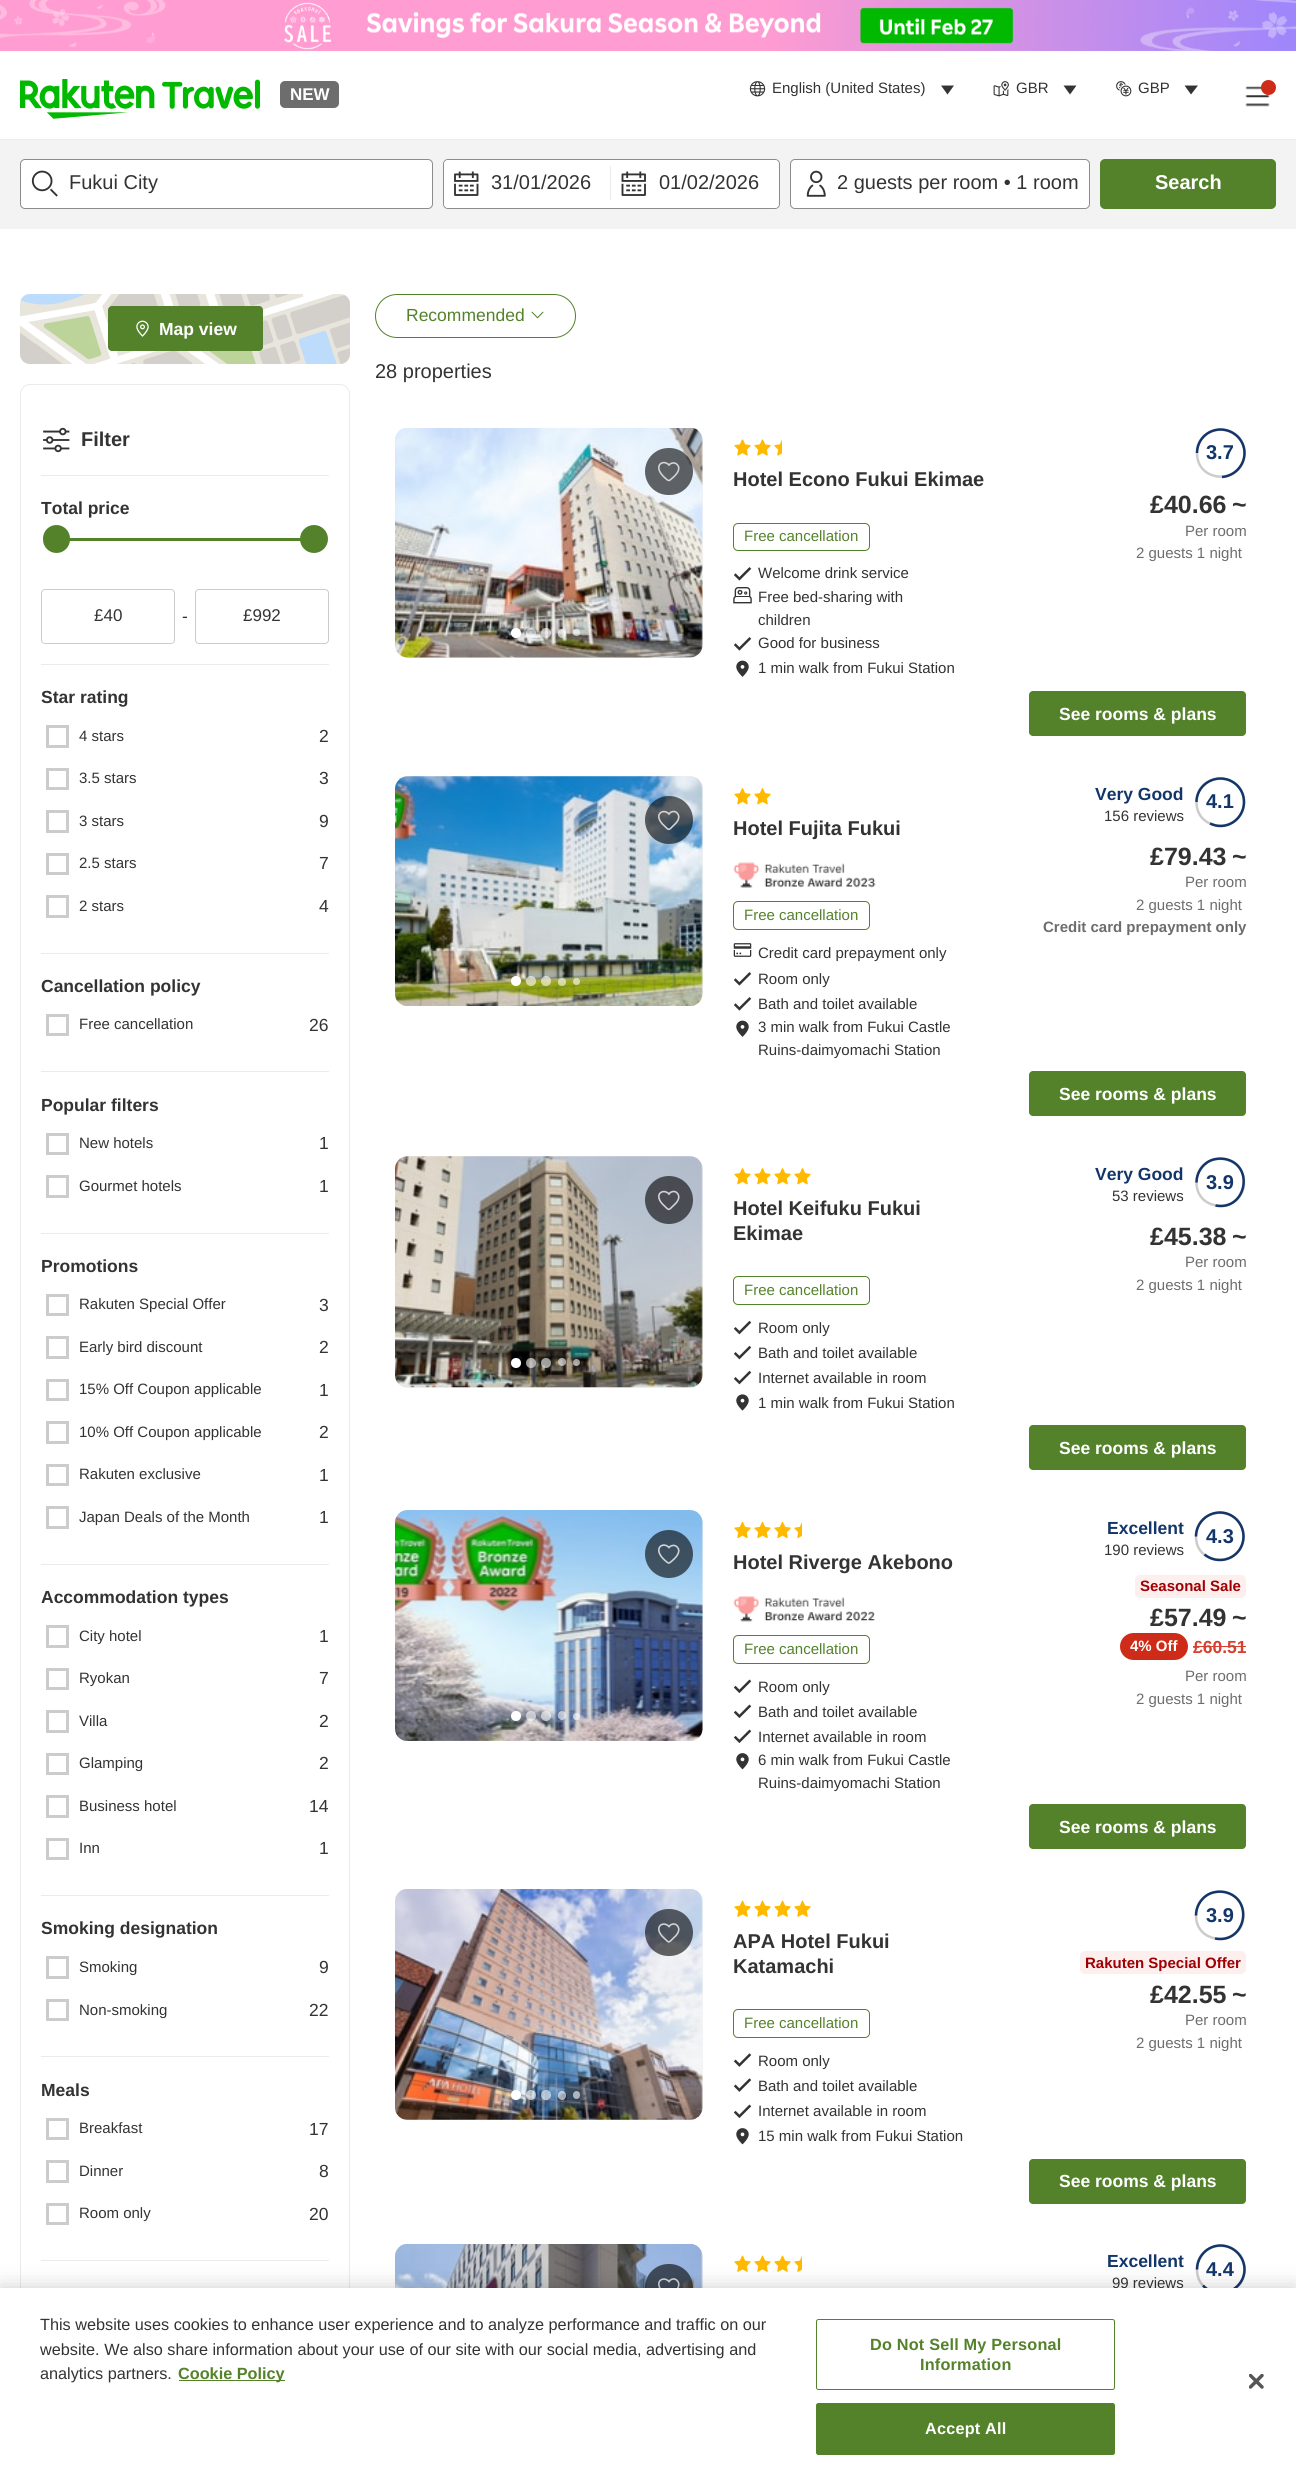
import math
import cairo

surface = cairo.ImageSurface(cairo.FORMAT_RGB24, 1296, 2479)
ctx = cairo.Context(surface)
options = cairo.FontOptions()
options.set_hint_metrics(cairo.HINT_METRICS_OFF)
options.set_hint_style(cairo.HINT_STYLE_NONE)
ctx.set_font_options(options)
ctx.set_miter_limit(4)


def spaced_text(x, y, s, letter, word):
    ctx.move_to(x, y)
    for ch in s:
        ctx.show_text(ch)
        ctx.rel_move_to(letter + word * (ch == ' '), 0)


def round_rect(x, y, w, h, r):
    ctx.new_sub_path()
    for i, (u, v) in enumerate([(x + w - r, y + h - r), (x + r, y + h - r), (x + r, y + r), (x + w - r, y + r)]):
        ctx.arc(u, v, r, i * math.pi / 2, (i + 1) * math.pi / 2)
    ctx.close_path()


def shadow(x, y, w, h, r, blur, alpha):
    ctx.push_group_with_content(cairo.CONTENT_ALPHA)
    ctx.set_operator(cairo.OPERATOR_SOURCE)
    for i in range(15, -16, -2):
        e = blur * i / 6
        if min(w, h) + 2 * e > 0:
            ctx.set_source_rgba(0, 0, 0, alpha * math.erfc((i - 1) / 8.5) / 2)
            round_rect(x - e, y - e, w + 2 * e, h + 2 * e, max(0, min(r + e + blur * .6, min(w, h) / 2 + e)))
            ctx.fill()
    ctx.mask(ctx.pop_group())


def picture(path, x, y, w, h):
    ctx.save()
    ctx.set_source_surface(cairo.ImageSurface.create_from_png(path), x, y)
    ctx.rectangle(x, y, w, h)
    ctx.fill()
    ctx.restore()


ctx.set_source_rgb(1, 1, 1)
ctx.paint()
picture("img1.png", 0, 0, 1296, 51)
ctx.set_source_rgb(0.918, 0.918, 0.918)
ctx.rectangle(0, 139, 1296, 1)
ctx.fill()
picture("img2.png", 20, 79, 240, 40)
ctx.set_source_rgb(0.427, 0.427, 0.427)
round_rect(280, 81, 59, 27, 5)
ctx.fill()
ctx.select_font_face("Liberation Sans", cairo.FONT_SLANT_NORMAL, cairo.FONT_WEIGHT_BOLD)
ctx.set_font_size(17)
ctx.set_source_rgb(1, 1, 1)
ctx.move_to(290, 100)
ctx.show_text("NEW")
picture("img3.png", 749, 81, 17, 16)
ctx.select_font_face("Liberation Sans")
ctx.set_font_size(15)
ctx.set_source_rgb(0.2, 0.2, 0.2)
ctx.move_to(772, 93)
ctx.show_text("English (United States)")
ctx.set_fill_rule(cairo.FILL_RULE_EVEN_ODD)
ctx.new_path()
ctx.move_to(947.5, 94.5)
ctx.line_to(941, 85.5)
ctx.line_to(954, 85.5)
ctx.close_path()
ctx.fill()
picture("img4.png", 993, 81, 16, 16)
ctx.move_to(1016, 93)
ctx.show_text("GBR")
ctx.new_path()
ctx.move_to(1070, 94.5)
ctx.line_to(1063.5, 85.5)
ctx.line_to(1076.5, 85.5)
ctx.close_path()
ctx.fill()
picture("img5.png", 1116, 81, 16, 16)
ctx.move_to(1138, 93)
ctx.show_text("GBP")
ctx.new_path()
ctx.move_to(1191, 94.5)
ctx.line_to(1184.5, 85.5)
ctx.line_to(1198, 85.5)
ctx.close_path()
ctx.fill()
picture("img6.png", 1245, 86, 25, 21)
ctx.set_source_rgb(0.808, 0.169, 0.094)
ctx.arc(1268.5, 87.5, 7.5, 0, 2 * math.pi)
ctx.fill()
ctx.set_source_rgb(0.953, 0.953, 0.953)
ctx.rectangle(0, 140, 1296, 89)
ctx.fill()
ctx.set_source_rgb(1, 1, 1)
round_rect(20.5, 159.5, 412, 49, 4.5)
ctx.fill_preserve()
ctx.set_source_rgb(0.549, 0.549, 0.549)
ctx.set_line_width(1)
ctx.stroke()
picture("img7.png", 31, 170, 27, 27)
ctx.set_font_size(20)
ctx.set_source_rgb(0.2, 0.2, 0.2)
ctx.move_to(69, 189)
ctx.show_text("Fukui City")
ctx.set_source_rgb(1, 1, 1)
round_rect(443.5, 159.5, 336, 49, 4.5)
ctx.fill_preserve()
ctx.set_source_rgb(0.549, 0.549, 0.549)
ctx.stroke()
ctx.set_source_rgb(1, 1, 1)
ctx.new_path()
ctx.move_to(448, 160)
ctx.line_to(610, 160)
ctx.line_to(610, 208)
ctx.line_to(448, 208)
ctx.curve_to(446, 208, 444, 206, 444, 204)
ctx.line_to(444, 164)
ctx.curve_to(444, 162, 446, 160, 448, 160)
ctx.close_path()
ctx.fill()
picture("img8.png", 454, 171, 25, 25)
ctx.set_source_rgb(0.2, 0.2, 0.2)
ctx.move_to(491, 189)
ctx.show_text("31/01/2026")
ctx.set_source_rgb(0.918, 0.918, 0.918)
ctx.rectangle(610, 166, 1, 34)
ctx.fill()
ctx.set_source_rgb(1, 1, 1)
ctx.new_path()
ctx.move_to(611, 160)
ctx.line_to(775, 160)
ctx.curve_to(777, 160, 779, 162, 779, 164)
ctx.line_to(779, 204)
ctx.curve_to(779, 206, 777, 208, 775, 208)
ctx.line_to(611, 208)
ctx.close_path()
ctx.fill()
picture("img9.png", 621, 171, 25, 25)
ctx.set_source_rgb(0.2, 0.2, 0.2)
ctx.move_to(659, 189)
ctx.show_text("01/02/2026")
ctx.set_source_rgb(1, 1, 1)
round_rect(790.5, 159.5, 299, 49, 4.5)
ctx.fill_preserve()
ctx.set_source_rgb(0.549, 0.549, 0.549)
ctx.stroke()
picture("img10.png", 806, 170, 20, 27)
ctx.set_source_rgb(0.2, 0.2, 0.2)
ctx.move_to(837, 189)
ctx.show_text("2 guests per room • 1 room")
ctx.set_source_rgb(0.329, 0.51, 0.169)
round_rect(1100, 159, 176, 50, 5)
ctx.fill()
ctx.select_font_face("Liberation Sans", cairo.FONT_SLANT_NORMAL, cairo.FONT_WEIGHT_BOLD)
ctx.set_source_rgb(1, 1, 1)
ctx.move_to(1155, 189)
ctx.show_text("Search")
picture("img11.png", 20, 294, 330, 70)
ctx.set_source_rgb(0.329, 0.51, 0.169)
round_rect(108, 306, 155, 45, 4)
ctx.fill()
picture("img12.png", 136, 320, 13, 17)
ctx.set_font_size(17.5)
ctx.set_source_rgb(1, 1, 1)
ctx.move_to(159, 335)
ctx.show_text("Map view")
round_rect(20.5, 384.5, 329, 1958, 9.5)
ctx.set_source_rgb(0.918, 0.918, 0.918)
ctx.stroke()
ctx.rectangle(41, 475, 288, 1)
ctx.fill()
picture("img13.png", 43, 427, 27, 26)
ctx.set_font_size(20)
ctx.set_source_rgb(0.2, 0.2, 0.2)
ctx.move_to(81, 446)
ctx.show_text("Filter")
ctx.set_source_rgb(0.918, 0.918, 0.918)
ctx.rectangle(41, 664, 288, 1)
ctx.fill()
ctx.set_font_size(17.5)
ctx.set_source_rgb(0.2, 0.2, 0.2)
ctx.move_to(41, 514)
ctx.show_text("Total price")
ctx.set_source_rgb(0.329, 0.51, 0.169)
ctx.rectangle(69, 538, 232, 3)
ctx.fill()
round_rect(43, 525, 27, 28, 13.5)
ctx.fill()
ctx.arc(314, 539, 14, 0, 2 * math.pi)
ctx.fill()
round_rect(41.5, 589.5, 133, 54, 3.5)
ctx.set_source_rgb(0.8, 0.8, 0.8)
ctx.stroke()
ctx.select_font_face("Liberation Sans")
ctx.set_font_size(17)
ctx.set_source_rgb(0.2, 0.2, 0.2)
ctx.move_to(94, 621)
ctx.show_text("£40")
ctx.set_font_size(17.5)
ctx.move_to(182, 622)
ctx.show_text("-")
round_rect(195.5, 589.5, 133, 54, 3.5)
ctx.set_source_rgb(0.8, 0.8, 0.8)
ctx.stroke()
ctx.set_font_size(17)
ctx.set_source_rgb(0.2, 0.2, 0.2)
ctx.move_to(243, 621)
ctx.show_text("£992")
ctx.set_source_rgb(0.918, 0.918, 0.918)
ctx.rectangle(41, 953, 288, 1)
ctx.fill()
ctx.select_font_face("Liberation Sans", cairo.FONT_SLANT_NORMAL, cairo.FONT_WEIGHT_BOLD)
ctx.set_font_size(17.5)
ctx.set_source_rgb(0.2, 0.2, 0.2)
ctx.move_to(41, 703)
ctx.show_text("Star rating")
ctx.rectangle(47.5, 726.5, 20, 20)
ctx.set_source_rgb(0.8, 0.8, 0.8)
ctx.set_line_width(3)
ctx.stroke()
ctx.select_font_face("Liberation Sans")
ctx.set_font_size(15)
ctx.set_source_rgb(0.2, 0.2, 0.2)
ctx.move_to(79, 741)
ctx.show_text("4 stars")
ctx.set_font_size(17.5)
ctx.move_to(319, 742)
ctx.show_text("2")
ctx.rectangle(47.5, 769.5, 20, 19)
ctx.set_source_rgb(0.8, 0.8, 0.8)
ctx.stroke()
ctx.set_font_size(15)
ctx.set_source_rgb(0.2, 0.2, 0.2)
ctx.move_to(79, 783)
ctx.show_text("3.5 stars")
ctx.set_font_size(17.5)
ctx.move_to(319, 784)
ctx.show_text("3")
ctx.rectangle(47.5, 811.5, 20, 20)
ctx.set_source_rgb(0.8, 0.8, 0.8)
ctx.stroke()
ctx.set_font_size(15)
ctx.set_source_rgb(0.2, 0.2, 0.2)
ctx.move_to(79, 826)
ctx.show_text("3 stars")
ctx.set_font_size(17.5)
ctx.move_to(319, 827)
ctx.show_text("9")
ctx.rectangle(47.5, 854.5, 20, 19)
ctx.set_source_rgb(0.8, 0.8, 0.8)
ctx.stroke()
ctx.set_font_size(15)
ctx.set_source_rgb(0.2, 0.2, 0.2)
ctx.move_to(79, 868)
ctx.show_text("2.5 stars")
ctx.set_font_size(17.5)
ctx.move_to(319, 869)
ctx.show_text("7")
ctx.rectangle(47.5, 896.5, 20, 20)
ctx.set_source_rgb(0.8, 0.8, 0.8)
ctx.stroke()
ctx.set_font_size(15)
ctx.set_source_rgb(0.2, 0.2, 0.2)
ctx.move_to(79, 911)
ctx.show_text("2 stars")
ctx.set_font_size(17.5)
ctx.move_to(319, 912)
ctx.show_text("4")
ctx.set_source_rgb(0.918, 0.918, 0.918)
ctx.rectangle(41, 1071, 288, 1)
ctx.fill()
ctx.select_font_face("Liberation Sans", cairo.FONT_SLANT_NORMAL, cairo.FONT_WEIGHT_BOLD)
ctx.set_source_rgb(0.2, 0.2, 0.2)
ctx.move_to(41, 992)
ctx.show_text("Cancellation policy")
ctx.rectangle(47.5, 1015.5, 20, 19)
ctx.set_source_rgb(0.8, 0.8, 0.8)
ctx.stroke()
ctx.select_font_face("Liberation Sans")
ctx.set_font_size(15)
ctx.set_source_rgb(0.2, 0.2, 0.2)
ctx.move_to(79, 1029)
ctx.show_text("Free cancellation")
ctx.set_font_size(17.5)
ctx.move_to(309, 1031)
ctx.show_text("26")
ctx.set_source_rgb(0.918, 0.918, 0.918)
ctx.rectangle(41, 1233, 288, 1)
ctx.fill()
ctx.select_font_face("Liberation Sans", cairo.FONT_SLANT_NORMAL, cairo.FONT_WEIGHT_BOLD)
ctx.set_source_rgb(0.2, 0.2, 0.2)
ctx.move_to(41, 1111)
ctx.show_text("Popular filters")
ctx.rectangle(47.5, 1134.5, 20, 19)
ctx.set_source_rgb(0.8, 0.8, 0.8)
ctx.stroke()
ctx.select_font_face("Liberation Sans")
ctx.set_font_size(15)
ctx.set_source_rgb(0.2, 0.2, 0.2)
ctx.move_to(79, 1148)
ctx.show_text("New hotels")
ctx.set_font_size(17.5)
ctx.move_to(319, 1149)
ctx.show_text("1")
ctx.rectangle(47.5, 1176.5, 20, 20)
ctx.set_source_rgb(0.8, 0.8, 0.8)
ctx.stroke()
ctx.set_font_size(15)
ctx.set_source_rgb(0.2, 0.2, 0.2)
ctx.move_to(79, 1191)
ctx.show_text("Gourmet hotels")
ctx.set_font_size(17.5)
ctx.move_to(319, 1192)
ctx.show_text("1")
ctx.set_source_rgb(0.918, 0.918, 0.918)
ctx.rectangle(41, 1564, 288, 1)
ctx.fill()
ctx.select_font_face("Liberation Sans", cairo.FONT_SLANT_NORMAL, cairo.FONT_WEIGHT_BOLD)
ctx.set_source_rgb(0.2, 0.2, 0.2)
ctx.move_to(41, 1272)
ctx.show_text("Promotions")
ctx.rectangle(47.5, 1295.5, 20, 19)
ctx.set_source_rgb(0.8, 0.8, 0.8)
ctx.stroke()
ctx.select_font_face("Liberation Sans")
ctx.set_font_size(15)
ctx.set_source_rgb(0.2, 0.2, 0.2)
ctx.move_to(79, 1309)
ctx.show_text("Rakuten Special Offer")
ctx.set_font_size(17.5)
ctx.move_to(319, 1311)
ctx.show_text("3")
ctx.rectangle(47.5, 1337.5, 20, 20)
ctx.set_source_rgb(0.8, 0.8, 0.8)
ctx.stroke()
ctx.set_font_size(15)
ctx.set_source_rgb(0.2, 0.2, 0.2)
ctx.move_to(79, 1352)
ctx.show_text("Early bird discount")
ctx.set_font_size(17.5)
ctx.move_to(319, 1353)
ctx.show_text("2")
ctx.rectangle(47.5, 1380.5, 20, 19)
ctx.set_source_rgb(0.8, 0.8, 0.8)
ctx.stroke()
ctx.set_font_size(15)
ctx.set_source_rgb(0.2, 0.2, 0.2)
ctx.move_to(79, 1394)
ctx.show_text("15% Off Coupon applicable")
ctx.set_font_size(17.5)
ctx.move_to(319, 1396)
ctx.show_text("1")
ctx.rectangle(47.5, 1422.5, 20, 20)
ctx.set_source_rgb(0.8, 0.8, 0.8)
ctx.stroke()
ctx.set_font_size(15)
ctx.set_source_rgb(0.2, 0.2, 0.2)
ctx.move_to(79, 1437)
ctx.show_text("10% Off Coupon applicable")
ctx.set_font_size(17.5)
ctx.move_to(319, 1438)
ctx.show_text("2")
ctx.rectangle(47.5, 1465.5, 20, 19)
ctx.set_source_rgb(0.8, 0.8, 0.8)
ctx.stroke()
ctx.set_font_size(15)
ctx.set_source_rgb(0.2, 0.2, 0.2)
ctx.move_to(79, 1479)
ctx.show_text("Rakuten exclusive")
ctx.set_font_size(17.5)
ctx.move_to(319, 1481)
ctx.show_text("1")
ctx.rectangle(47.5, 1507.5, 20, 20)
ctx.set_source_rgb(0.8, 0.8, 0.8)
ctx.stroke()
ctx.set_font_size(15)
ctx.set_source_rgb(0.2, 0.2, 0.2)
ctx.move_to(79, 1522)
ctx.show_text("Japan Deals of the Month")
ctx.set_font_size(17.5)
ctx.move_to(319, 1523)
ctx.show_text("1")
ctx.set_source_rgb(0.918, 0.918, 0.918)
ctx.rectangle(41, 1895, 288, 1)
ctx.fill()
ctx.select_font_face("Liberation Sans", cairo.FONT_SLANT_NORMAL, cairo.FONT_WEIGHT_BOLD)
ctx.set_source_rgb(0.2, 0.2, 0.2)
ctx.move_to(41, 1603)
ctx.show_text("Accommodation types")
ctx.rectangle(47.5, 1626.5, 20, 20)
ctx.set_source_rgb(0.8, 0.8, 0.8)
ctx.stroke()
ctx.select_font_face("Liberation Sans")
ctx.set_font_size(15)
ctx.set_source_rgb(0.2, 0.2, 0.2)
ctx.move_to(79, 1641)
ctx.show_text("City hotel")
ctx.set_font_size(17.5)
ctx.move_to(319, 1642)
ctx.show_text("1")
ctx.rectangle(47.5, 1669.5, 20, 19)
ctx.set_source_rgb(0.8, 0.8, 0.8)
ctx.stroke()
ctx.set_font_size(15)
ctx.set_source_rgb(0.2, 0.2, 0.2)
ctx.move_to(79, 1683)
ctx.show_text("Ryokan")
ctx.set_font_size(17.5)
ctx.move_to(319, 1684)
ctx.show_text("7")
ctx.rectangle(47.5, 1711.5, 20, 20)
ctx.set_source_rgb(0.8, 0.8, 0.8)
ctx.stroke()
ctx.set_font_size(15)
ctx.set_source_rgb(0.2, 0.2, 0.2)
ctx.move_to(79, 1726)
ctx.show_text("Villa")
ctx.set_font_size(17.5)
ctx.move_to(319, 1727)
ctx.show_text("2")
ctx.rectangle(47.5, 1754.5, 20, 19)
ctx.set_source_rgb(0.8, 0.8, 0.8)
ctx.stroke()
ctx.set_font_size(15)
ctx.set_source_rgb(0.2, 0.2, 0.2)
ctx.move_to(79, 1768)
ctx.show_text("Glamping")
ctx.set_font_size(17.5)
ctx.move_to(319, 1769)
ctx.show_text("2")
ctx.rectangle(47.5, 1796.5, 20, 20)
ctx.set_source_rgb(0.8, 0.8, 0.8)
ctx.stroke()
ctx.set_font_size(15)
ctx.set_source_rgb(0.2, 0.2, 0.2)
ctx.move_to(79, 1811)
ctx.show_text("Business hotel")
ctx.set_font_size(17.5)
ctx.move_to(309, 1812)
ctx.show_text("14")
ctx.rectangle(47.5, 1839.5, 20, 19)
ctx.set_source_rgb(0.8, 0.8, 0.8)
ctx.stroke()
ctx.set_font_size(15)
ctx.set_source_rgb(0.2, 0.2, 0.2)
ctx.move_to(79, 1853)
ctx.show_text("Inn")
ctx.set_font_size(17.5)
ctx.move_to(319, 1854)
ctx.show_text("1")
ctx.set_source_rgb(0.918, 0.918, 0.918)
ctx.rectangle(41, 2056, 288, 1)
ctx.fill()
ctx.select_font_face("Liberation Sans", cairo.FONT_SLANT_NORMAL, cairo.FONT_WEIGHT_BOLD)
ctx.set_source_rgb(0.2, 0.2, 0.2)
ctx.move_to(41, 1934)
ctx.show_text("Smoking designation")
ctx.rectangle(47.5, 1957.5, 20, 20)
ctx.set_source_rgb(0.8, 0.8, 0.8)
ctx.stroke()
ctx.select_font_face("Liberation Sans")
ctx.set_font_size(15)
ctx.set_source_rgb(0.2, 0.2, 0.2)
ctx.move_to(79, 1972)
ctx.show_text("Smoking")
ctx.set_font_size(17.5)
ctx.move_to(319, 1973)
ctx.show_text("9")
ctx.rectangle(47.5, 2000.5, 20, 19)
ctx.set_source_rgb(0.8, 0.8, 0.8)
ctx.stroke()
ctx.set_font_size(15)
ctx.set_source_rgb(0.2, 0.2, 0.2)
ctx.move_to(79, 2015)
ctx.show_text("Non-smoking")
ctx.set_font_size(17.5)
ctx.move_to(309, 2016)
ctx.show_text("22")
ctx.set_source_rgb(0.918, 0.918, 0.918)
ctx.rectangle(41, 2260, 288, 1)
ctx.fill()
ctx.select_font_face("Liberation Sans", cairo.FONT_SLANT_NORMAL, cairo.FONT_WEIGHT_BOLD)
ctx.set_source_rgb(0.2, 0.2, 0.2)
ctx.move_to(41, 2096)
ctx.show_text("Meals")
ctx.rectangle(47.5, 2119.5, 20, 19)
ctx.set_source_rgb(0.8, 0.8, 0.8)
ctx.stroke()
ctx.select_font_face("Liberation Sans")
ctx.set_font_size(15)
ctx.set_source_rgb(0.2, 0.2, 0.2)
ctx.move_to(79, 2133)
ctx.show_text("Breakfast")
ctx.set_font_size(17.5)
ctx.move_to(309, 2135)
ctx.show_text("17")
ctx.rectangle(47.5, 2161.5, 20, 20)
ctx.set_source_rgb(0.8, 0.8, 0.8)
ctx.stroke()
ctx.set_font_size(15)
ctx.set_source_rgb(0.2, 0.2, 0.2)
ctx.move_to(79, 2176)
ctx.show_text("Dinner")
ctx.set_font_size(17.5)
ctx.move_to(319, 2177)
ctx.show_text("8")
ctx.rectangle(47.5, 2204.5, 20, 19)
ctx.set_source_rgb(0.8, 0.8, 0.8)
ctx.stroke()
ctx.set_font_size(15)
ctx.set_source_rgb(0.2, 0.2, 0.2)
ctx.move_to(79, 2218)
ctx.show_text("Room only")
ctx.set_font_size(17.5)
ctx.move_to(309, 2220)
ctx.show_text("20")
round_rect(375.5, 294.5, 200, 43, 21.5)
ctx.set_source_rgb(0.329, 0.51, 0.169)
ctx.set_line_width(1)
ctx.stroke()
ctx.move_to(406, 321)
ctx.show_text("Recommended")
picture("img14.png", 531, 311, 13, 8)
ctx.set_font_size(20)
ctx.set_source_rgb(0.2, 0.2, 0.2)
ctx.move_to(375, 378)
ctx.show_text("28 properties")
ctx.set_source_rgb(0.953, 0.953, 0.953)
round_rect(395, 428, 308, 230, 13)
ctx.fill()
picture("img15.png", 395, 428, 308, 230)
ctx.set_source_rgb(1, 1, 1)
ctx.arc(516, 633, 5, 0, 2 * math.pi)
ctx.fill()
ctx.set_source_rgba(1, 1, 1, 0.6)
ctx.arc(531, 633, 5, 0, 2 * math.pi)
ctx.fill()
ctx.arc(546, 633, 5, 0, 2 * math.pi)
ctx.fill()
round_rect(558, 629, 8, 9, 4)
ctx.fill()
ctx.arc(576.5, 632.5, 3.5, 0, 2 * math.pi)
ctx.fill()
ctx.set_source_rgba(0, 0, 0, 0.6)
round_rect(645, 448, 48, 47, 23.5)
ctx.fill()
ctx.new_path()
ctx.move_to(677.5, 465)
ctx.curve_to(675.5, 462, 671, 462.5, 669, 465)
ctx.curve_to(663, 458.5, 652, 466, 664.5, 477.5)
ctx.curve_to(669, 481.5, 668.5, 481.5, 673, 477.5)
ctx.curve_to(676.5, 474.5, 681, 469, 677.5, 465)
ctx.set_source_rgb(0.827, 0.827, 0.827)
ctx.set_line_width(1.6)
ctx.stroke()
picture("img16.png", 734, 439, 17, 17)
picture("img16.png", 754, 439, 17, 17)
picture("img17.png", 774, 439, 8, 17)
ctx.select_font_face("Liberation Sans", cairo.FONT_SLANT_NORMAL, cairo.FONT_WEIGHT_BOLD)
ctx.set_source_rgb(0.2, 0.2, 0.2)
ctx.move_to(733, 486)
ctx.show_text("Hotel Econo Fukui Ekimae")
round_rect(733.5, 523.5, 136, 27, 4.5)
ctx.set_source_rgb(0.329, 0.51, 0.169)
ctx.set_line_width(1)
ctx.stroke()
ctx.select_font_face("Liberation Sans")
ctx.set_font_size(15)
ctx.move_to(744, 541)
ctx.show_text("Free cancellation")
picture("img18.png", 733, 567, 19, 14)
ctx.set_source_rgb(0.2, 0.2, 0.2)
ctx.move_to(758, 578)
ctx.show_text("Welcome drink service")
picture("img19.png", 733, 587, 19, 17)
ctx.move_to(758, 602)
ctx.show_text("Free bed-sharing with")
ctx.move_to(758, 625)
ctx.show_text("children")
picture("img18.png", 733, 637, 19, 14)
ctx.move_to(758, 648)
ctx.show_text("Good for business")
picture("img20.png", 736, 660, 13, 17)
ctx.move_to(758, 673)
ctx.show_text("1 min walk from Fukui Station")
ctx.select_font_face("Liberation Sans", cairo.FONT_SLANT_NORMAL, cairo.FONT_WEIGHT_BOLD)
ctx.set_font_size(20)
ctx.set_source_rgb(0.075, 0.212, 0.416)
ctx.move_to(1206, 459)
ctx.show_text("3.7")
ctx.new_path()
ctx.move_to(1197, 453)
ctx.curve_to(1197, 422, 1244.5, 422, 1244.5, 453)
ctx.curve_to(1244.5, 484.5, 1197, 484.5, 1197, 453)
ctx.close_path()
ctx.set_source_rgb(0.8, 0.8, 0.8)
ctx.set_line_width(2.5)
ctx.stroke()
ctx.new_path()
ctx.move_to(1197, 453)
ctx.curve_to(1197, 440, 1207.5, 429.5, 1220.5, 429.5)
ctx.curve_to(1233.5, 429.5, 1244.5, 440, 1244.5, 453)
ctx.curve_to(1244.5, 465.5, 1234.5, 476, 1222, 477)
ctx.set_source_rgb(0.075, 0.212, 0.416)
ctx.stroke()
ctx.set_font_size(25)
ctx.set_source_rgb(0.2, 0.2, 0.2)
ctx.move_to(1150, 513)
ctx.show_text("£40.66")
ctx.move_to(1232, 513)
ctx.show_text("~")
ctx.select_font_face("Liberation Sans")
ctx.set_font_size(15)
ctx.set_source_rgb(0.427, 0.427, 0.427)
ctx.move_to(1185, 536)
ctx.show_text("Per room")
ctx.move_to(1136, 558)
ctx.show_text("2 guests 1 night")
ctx.set_source_rgb(0.329, 0.51, 0.169)
round_rect(1029, 691, 217, 45, 4)
ctx.fill()
ctx.select_font_face("Liberation Sans", cairo.FONT_SLANT_NORMAL, cairo.FONT_WEIGHT_BOLD)
ctx.set_font_size(17.5)
ctx.set_source_rgb(1, 1, 1)
ctx.move_to(1059, 720)
ctx.show_text("See rooms & plans")
ctx.set_source_rgb(0.953, 0.953, 0.953)
round_rect(395, 776, 308, 230, 13)
ctx.fill()
picture("img21.png", 395, 776, 308, 230)
ctx.set_source_rgb(1, 1, 1)
ctx.arc(516, 981, 5, 0, 2 * math.pi)
ctx.fill()
ctx.set_source_rgba(1, 1, 1, 0.6)
ctx.arc(531, 981, 5, 0, 2 * math.pi)
ctx.fill()
ctx.arc(546, 981, 5, 0, 2 * math.pi)
ctx.fill()
ctx.arc(562, 982, 4, 0, 2 * math.pi)
ctx.fill()
ctx.arc(576.5, 981.5, 3.5, 0, 2 * math.pi)
ctx.fill()
ctx.set_source_rgba(0, 0, 0, 0.6)
ctx.arc(669, 820, 24, 0, 2 * math.pi)
ctx.fill()
ctx.new_path()
ctx.move_to(677.5, 813.5)
ctx.curve_to(675.5, 810.5, 671, 811, 669, 814)
ctx.curve_to(663, 807.5, 652, 815, 664.5, 826)
ctx.curve_to(669, 830.5, 668.5, 830.5, 673, 826)
ctx.curve_to(676.5, 823, 681, 818, 677.5, 813.5)
ctx.set_source_rgb(0.827, 0.827, 0.827)
ctx.set_line_width(1.6)
ctx.stroke()
picture("img22.png", 734, 788, 17, 17)
picture("img22.png", 754, 788, 17, 17)
ctx.set_font_size(20)
ctx.set_source_rgb(0.2, 0.2, 0.2)
ctx.move_to(733, 835)
ctx.show_text("Hotel Fujita Fukui")
picture("img23.png", 733, 862, 143, 26)
round_rect(733.5, 901.5, 136, 28, 4.5)
ctx.set_source_rgb(0.329, 0.51, 0.169)
ctx.set_line_width(1)
ctx.stroke()
ctx.select_font_face("Liberation Sans")
ctx.set_font_size(15)
ctx.move_to(744, 920)
ctx.show_text("Free cancellation")
picture("img24.png", 733, 943, 19, 14)
ctx.set_source_rgb(0.2, 0.2, 0.2)
ctx.move_to(758, 958)
ctx.show_text("Credit card prepayment only")
picture("img18.png", 733, 972, 19, 14)
ctx.move_to(758, 984)
ctx.show_text("Room only")
picture("img18.png", 733, 997, 19, 14)
ctx.move_to(758, 1009)
ctx.show_text("Bath and toilet available")
picture("img20.png", 736, 1020, 13, 17)
ctx.move_to(758, 1032)
ctx.show_text("3 min walk from Fukui Castle")
ctx.move_to(758, 1055)
ctx.show_text("Ruins-daimyomachi Station")
ctx.select_font_face("Liberation Sans", cairo.FONT_SLANT_NORMAL, cairo.FONT_WEIGHT_BOLD)
ctx.set_font_size(17.5)
ctx.set_source_rgb(0.075, 0.212, 0.416)
ctx.move_to(1095, 800)
ctx.show_text("Very Good")
ctx.select_font_face("Liberation Sans")
ctx.set_font_size(15)
ctx.set_source_rgb(0.2, 0.2, 0.2)
ctx.move_to(1104, 821)
ctx.show_text("156 reviews")
ctx.select_font_face("Liberation Sans", cairo.FONT_SLANT_NORMAL, cairo.FONT_WEIGHT_BOLD)
ctx.set_font_size(20)
ctx.set_source_rgb(0.075, 0.212, 0.416)
ctx.move_to(1206, 808)
ctx.show_text("4.1")
ctx.new_path()
ctx.move_to(1196.5, 802)
ctx.curve_to(1196.5, 771, 1244, 771, 1244, 802)
ctx.curve_to(1244, 833.5, 1196.5, 833.5, 1196.5, 802)
ctx.close_path()
ctx.set_source_rgb(0.8, 0.8, 0.8)
ctx.set_line_width(2.5)
ctx.stroke()
ctx.new_path()
ctx.move_to(1196.5, 802)
ctx.curve_to(1196.5, 789, 1207.5, 778.5, 1220.5, 778.5)
ctx.curve_to(1233.5, 778.5, 1244, 789, 1244, 802)
ctx.curve_to(1244, 815, 1233.5, 826, 1220.5, 826)
ctx.curve_to(1216.5, 826, 1213.5, 825, 1210, 823.5)
ctx.set_source_rgb(0.075, 0.212, 0.416)
ctx.stroke()
ctx.set_font_size(25)
ctx.set_source_rgb(0.2, 0.2, 0.2)
ctx.move_to(1150, 865)
ctx.show_text("£79.43")
ctx.move_to(1232, 865)
ctx.show_text("~")
ctx.select_font_face("Liberation Sans")
ctx.set_font_size(15)
ctx.set_source_rgb(0.427, 0.427, 0.427)
ctx.move_to(1185, 887)
ctx.show_text("Per room")
ctx.move_to(1136, 910)
ctx.show_text("2 guests 1 night")
ctx.select_font_face("Liberation Sans", cairo.FONT_SLANT_NORMAL, cairo.FONT_WEIGHT_BOLD)
ctx.move_to(1043, 932)
ctx.show_text("Credit card prepayment only")
ctx.set_source_rgb(0.329, 0.51, 0.169)
round_rect(1029, 1071, 217, 45, 4)
ctx.fill()
ctx.set_font_size(17.5)
ctx.set_source_rgb(1, 1, 1)
ctx.move_to(1059, 1100)
ctx.show_text("See rooms & plans")
ctx.set_source_rgb(0.953, 0.953, 0.953)
round_rect(395, 1156, 308, 232, 13)
ctx.fill()
picture("img25.png", 395, 1156, 308, 232)
ctx.set_source_rgb(1, 1, 1)
ctx.arc(516, 1363, 5, 0, 2 * math.pi)
ctx.fill()
ctx.set_source_rgba(1, 1, 1, 0.6)
ctx.arc(531, 1363, 5, 0, 2 * math.pi)
ctx.fill()
ctx.arc(546, 1363, 5, 0, 2 * math.pi)
ctx.fill()
ctx.arc(562, 1362, 4, 0, 2 * math.pi)
ctx.fill()
ctx.arc(576.5, 1362.5, 3.5, 0, 2 * math.pi)
ctx.fill()
ctx.set_source_rgba(0, 0, 0, 0.6)
ctx.arc(669, 1200, 24, 0, 2 * math.pi)
ctx.fill()
ctx.new_path()
ctx.move_to(677.5, 1193.5)
ctx.curve_to(675.5, 1190.5, 671, 1191, 669, 1194)
ctx.curve_to(663, 1187.5, 652, 1195, 664.5, 1206)
ctx.curve_to(669, 1210.5, 668.5, 1210.5, 673, 1206)
ctx.curve_to(676.5, 1203, 681, 1198, 677.5, 1193.5)
ctx.set_source_rgb(0.827, 0.827, 0.827)
ctx.set_line_width(1.6)
ctx.stroke()
picture("img22.png", 734, 1168, 17, 17)
picture("img22.png", 754, 1168, 17, 17)
picture("img22.png", 774, 1168, 17, 17)
picture("img22.png", 794, 1168, 17, 17)
ctx.set_font_size(20)
ctx.set_source_rgb(0.2, 0.2, 0.2)
ctx.move_to(733, 1215)
ctx.show_text("Hotel Keifuku Fukui")
ctx.move_to(733, 1240)
ctx.show_text("Ekimae")
round_rect(733.5, 1276.5, 136, 28, 4.5)
ctx.set_source_rgb(0.329, 0.51, 0.169)
ctx.set_line_width(1)
ctx.stroke()
ctx.select_font_face("Liberation Sans")
ctx.set_font_size(15)
ctx.move_to(744, 1295)
ctx.show_text("Free cancellation")
picture("img26.png", 733, 1320, 19, 15)
ctx.set_source_rgb(0.2, 0.2, 0.2)
ctx.move_to(758, 1333)
ctx.show_text("Room only")
picture("img26.png", 733, 1345, 19, 15)
ctx.move_to(758, 1358)
ctx.show_text("Bath and toilet available")
picture("img26.png", 733, 1370, 19, 15)
ctx.move_to(758, 1383)
ctx.show_text("Internet available in room")
picture("img27.png", 736, 1394, 13, 17)
ctx.move_to(758, 1408)
ctx.show_text("1 min walk from Fukui Station")
ctx.select_font_face("Liberation Sans", cairo.FONT_SLANT_NORMAL, cairo.FONT_WEIGHT_BOLD)
ctx.set_font_size(17.5)
ctx.set_source_rgb(0.075, 0.212, 0.416)
ctx.move_to(1095, 1180)
ctx.show_text("Very Good")
ctx.select_font_face("Liberation Sans")
ctx.set_font_size(15)
ctx.set_source_rgb(0.2, 0.2, 0.2)
ctx.move_to(1112, 1201)
ctx.show_text("53 reviews")
ctx.select_font_face("Liberation Sans", cairo.FONT_SLANT_NORMAL, cairo.FONT_WEIGHT_BOLD)
ctx.set_font_size(20)
ctx.set_source_rgb(0.075, 0.212, 0.416)
ctx.move_to(1206, 1189)
ctx.show_text("3.9")
ctx.new_path()
ctx.move_to(1196.5, 1182.5)
ctx.curve_to(1196.5, 1151, 1244, 1151, 1244, 1182.5)
ctx.curve_to(1244, 1213.5, 1196.5, 1213.5, 1196.5, 1182.5)
ctx.close_path()
ctx.set_source_rgb(0.8, 0.8, 0.8)
ctx.set_line_width(2.5)
ctx.stroke()
ctx.new_path()
ctx.move_to(1196.5, 1182.5)
ctx.curve_to(1196.5, 1174.5, 1200.5, 1167, 1207, 1162.5)
ctx.curve_to(1212, 1159, 1218.5, 1158, 1225, 1159)
ctx.curve_to(1255.5, 1165, 1246, 1211.5, 1215.5, 1205.5)
ctx.set_source_rgb(0.075, 0.212, 0.416)
ctx.stroke()
ctx.set_font_size(25)
ctx.set_source_rgb(0.2, 0.2, 0.2)
ctx.move_to(1150, 1245)
ctx.show_text("£45.38")
ctx.move_to(1232, 1245)
ctx.show_text("~")
ctx.select_font_face("Liberation Sans")
ctx.set_font_size(15)
ctx.set_source_rgb(0.427, 0.427, 0.427)
ctx.move_to(1185, 1267)
ctx.show_text("Per room")
ctx.move_to(1136, 1290)
ctx.show_text("2 guests 1 night")
ctx.set_source_rgb(0.329, 0.51, 0.169)
round_rect(1029, 1425, 217, 45, 4)
ctx.fill()
ctx.select_font_face("Liberation Sans", cairo.FONT_SLANT_NORMAL, cairo.FONT_WEIGHT_BOLD)
ctx.set_font_size(17.5)
ctx.set_source_rgb(1, 1, 1)
ctx.move_to(1059, 1454)
ctx.show_text("See rooms & plans")
ctx.set_source_rgb(0.953, 0.953, 0.953)
round_rect(395, 1510, 308, 231, 13)
ctx.fill()
picture("img28.png", 395, 1510, 308, 231)
ctx.set_source_rgb(1, 1, 1)
ctx.arc(516, 1716, 5, 0, 2 * math.pi)
ctx.fill()
ctx.set_source_rgba(1, 1, 1, 0.6)
ctx.arc(531, 1716, 5, 0, 2 * math.pi)
ctx.fill()
ctx.arc(546, 1716, 5, 0, 2 * math.pi)
ctx.fill()
round_rect(558, 1711, 8, 9, 4)
ctx.fill()
ctx.arc(576.5, 1716.5, 3.5, 0, 2 * math.pi)
ctx.fill()
ctx.set_source_rgba(0, 0, 0, 0.6)
ctx.arc(669, 1554, 24, 0, 2 * math.pi)
ctx.fill()
ctx.new_path()
ctx.move_to(677.5, 1547.5)
ctx.curve_to(675.5, 1544.5, 671, 1545, 669, 1547.5)
ctx.curve_to(663, 1541, 652, 1548.5, 664.5, 1560)
ctx.curve_to(669, 1564, 668.5, 1564, 673, 1560)
ctx.curve_to(676.5, 1557, 681, 1551.5, 677.5, 1547.5)
ctx.set_source_rgb(0.827, 0.827, 0.827)
ctx.set_line_width(1.6)
ctx.stroke()
picture("img29.png", 734, 1521, 17, 18)
picture("img29.png", 754, 1521, 17, 18)
picture("img29.png", 774, 1521, 17, 18)
picture("img30.png", 794, 1522, 8, 17)
ctx.set_font_size(20)
ctx.set_source_rgb(0.2, 0.2, 0.2)
ctx.move_to(733, 1569)
ctx.show_text("Hotel Riverge Akebono")
picture("img31.png", 733, 1596, 142, 26)
round_rect(733.5, 1635.5, 136, 28, 4.5)
ctx.set_source_rgb(0.329, 0.51, 0.169)
ctx.set_line_width(1)
ctx.stroke()
ctx.select_font_face("Liberation Sans")
ctx.set_font_size(15)
ctx.move_to(744, 1654)
ctx.show_text("Free cancellation")
picture("img32.png", 733, 1679, 19, 14)
ctx.set_source_rgb(0.2, 0.2, 0.2)
ctx.move_to(758, 1692)
ctx.show_text("Room only")
picture("img32.png", 733, 1704, 19, 14)
ctx.move_to(758, 1717)
ctx.show_text("Bath and toilet available")
picture("img32.png", 733, 1729, 19, 14)
ctx.move_to(758, 1742)
ctx.show_text("Internet available in room")
picture("img33.png", 736, 1753, 13, 17)
ctx.move_to(758, 1765)
ctx.show_text("6 min walk from Fukui Castle")
ctx.move_to(758, 1788)
ctx.show_text("Ruins-daimyomachi Station")
ctx.select_font_face("Liberation Sans", cairo.FONT_SLANT_NORMAL, cairo.FONT_WEIGHT_BOLD)
ctx.set_font_size(17.5)
ctx.set_source_rgb(0.075, 0.212, 0.416)
ctx.move_to(1107, 1534)
ctx.show_text("Excellent")
ctx.select_font_face("Liberation Sans")
ctx.set_font_size(15)
ctx.set_source_rgb(0.2, 0.2, 0.2)
ctx.move_to(1104, 1555)
ctx.show_text("190 reviews")
ctx.select_font_face("Liberation Sans", cairo.FONT_SLANT_NORMAL, cairo.FONT_WEIGHT_BOLD)
ctx.set_font_size(20)
ctx.set_source_rgb(0.075, 0.212, 0.416)
ctx.move_to(1206, 1543)
ctx.show_text("4.3")
ctx.new_path()
ctx.move_to(1196, 1536.5)
ctx.curve_to(1196, 1505, 1243.5, 1505, 1243.5, 1536.5)
ctx.curve_to(1243.5, 1567.5, 1196, 1567.5, 1196, 1536.5)
ctx.close_path()
ctx.set_source_rgb(0.8, 0.8, 0.8)
ctx.set_line_width(2.5)
ctx.stroke()
ctx.new_path()
ctx.move_to(1196, 1536.5)
ctx.curve_to(1196, 1523.5, 1206.5, 1512.5, 1220, 1512.5)
ctx.curve_to(1233, 1512.5, 1243.5, 1523.5, 1243.5, 1536.5)
ctx.curve_to(1243.5, 1549.5, 1233, 1560, 1220, 1560)
ctx.curve_to(1214, 1560, 1209, 1558, 1204.5, 1554.5)
ctx.set_source_rgb(0.075, 0.212, 0.416)
ctx.stroke()
ctx.set_source_rgb(0.988, 0.937, 0.933)
round_rect(1135, 1575, 111, 23, 5)
ctx.fill()
ctx.set_font_size(15)
ctx.set_source_rgb(0.62, 0, 0.016)
ctx.move_to(1140, 1591)
ctx.show_text("Seasonal Sale")
ctx.set_font_size(25)
ctx.set_source_rgb(0.2, 0.2, 0.2)
ctx.move_to(1150, 1626)
ctx.show_text("£57.49")
ctx.move_to(1232, 1626)
ctx.show_text("~")
ctx.set_source_rgb(0.808, 0.169, 0.094)
round_rect(1120, 1633, 68, 27, 13.5)
ctx.fill()
ctx.set_font_size(15)
ctx.set_source_rgb(1, 1, 1)
ctx.move_to(1130, 1651)
ctx.show_text("4% Off")
ctx.set_font_size(17.5)
ctx.set_source_rgb(0.843, 0.251, 0.18)
ctx.move_to(1193, 1653)
ctx.show_text("£60.51")
ctx.rectangle(1193, 1646, 53, 1)
ctx.fill()
ctx.select_font_face("Liberation Sans")
ctx.set_font_size(15)
ctx.set_source_rgb(0.427, 0.427, 0.427)
ctx.move_to(1185, 1681)
ctx.show_text("Per room")
ctx.move_to(1136, 1704)
ctx.show_text("2 guests 1 night")
ctx.set_source_rgb(0.329, 0.51, 0.169)
round_rect(1029, 1804, 217, 45, 4)
ctx.fill()
ctx.select_font_face("Liberation Sans", cairo.FONT_SLANT_NORMAL, cairo.FONT_WEIGHT_BOLD)
ctx.set_font_size(17.5)
ctx.set_source_rgb(1, 1, 1)
ctx.move_to(1059, 1833)
ctx.show_text("See rooms & plans")
ctx.set_source_rgb(0.953, 0.953, 0.953)
round_rect(395, 1889, 308, 231, 13)
ctx.fill()
picture("img34.png", 395, 1889, 308, 231)
ctx.set_source_rgb(1, 1, 1)
ctx.arc(516, 2095, 5, 0, 2 * math.pi)
ctx.fill()
ctx.set_source_rgba(1, 1, 1, 0.6)
ctx.arc(531, 2095, 5, 0, 2 * math.pi)
ctx.fill()
ctx.arc(546, 2095, 5, 0, 2 * math.pi)
ctx.fill()
round_rect(558, 2091, 8, 9, 4)
ctx.fill()
round_rect(573, 2091, 7, 8, 3.5)
ctx.fill()
ctx.set_source_rgba(0, 0, 0, 0.6)
round_rect(645, 1909, 48, 47, 23.5)
ctx.fill()
ctx.new_path()
ctx.move_to(677.5, 1926)
ctx.curve_to(675.5, 1923, 671, 1923.5, 669, 1926.5)
ctx.curve_to(663, 1920, 652, 1927.5, 664.5, 1938.5)
ctx.curve_to(669, 1943, 668.5, 1943, 673, 1938.5)
ctx.curve_to(676.5, 1935.5, 681, 1930.5, 677.5, 1926)
ctx.set_source_rgb(0.827, 0.827, 0.827)
ctx.set_line_width(1.6)
ctx.stroke()
picture("img35.png", 734, 1900, 17, 17)
picture("img35.png", 754, 1900, 17, 17)
picture("img35.png", 774, 1900, 17, 17)
picture("img35.png", 794, 1900, 17, 17)
ctx.set_font_size(20)
ctx.set_source_rgb(0.2, 0.2, 0.2)
ctx.move_to(733, 1948)
ctx.show_text("APA Hotel Fukui")
ctx.move_to(733, 1973)
ctx.show_text("Katamachi")
round_rect(733.5, 2009.5, 136, 28, 4.5)
ctx.set_source_rgb(0.329, 0.51, 0.169)
ctx.set_line_width(1)
ctx.stroke()
ctx.select_font_face("Liberation Sans")
ctx.set_font_size(15)
ctx.move_to(744, 2028)
ctx.show_text("Free cancellation")
picture("img36.png", 733, 2053, 19, 14)
ctx.set_source_rgb(0.2, 0.2, 0.2)
ctx.move_to(758, 2066)
ctx.show_text("Room only")
picture("img36.png", 733, 2078, 19, 14)
ctx.move_to(758, 2091)
ctx.show_text("Bath and toilet available")
picture("img32.png", 733, 2104, 19, 14)
ctx.move_to(758, 2116)
ctx.show_text("Internet available in room")
picture("img33.png", 736, 2128, 13, 17)
ctx.move_to(758, 2141)
ctx.show_text("15 min walk from Fukui Station")
ctx.select_font_face("Liberation Sans", cairo.FONT_SLANT_NORMAL, cairo.FONT_WEIGHT_BOLD)
ctx.set_font_size(20)
ctx.set_source_rgb(0.075, 0.212, 0.416)
ctx.move_to(1206, 1922)
ctx.show_text("3.9")
ctx.new_path()
ctx.move_to(1196, 1915.5)
ctx.curve_to(1196, 1884, 1243.5, 1884, 1243.5, 1915.5)
ctx.curve_to(1243.5, 1946.5, 1196, 1946.5, 1196, 1915.5)
ctx.close_path()
ctx.set_source_rgb(0.8, 0.8, 0.8)
ctx.set_line_width(2.5)
ctx.stroke()
ctx.new_path()
ctx.move_to(1196, 1915.5)
ctx.curve_to(1196, 1907.5, 1200, 1900, 1206.5, 1895.5)
ctx.curve_to(1211.5, 1892, 1218, 1891, 1224.5, 1892)
ctx.curve_to(1255, 1898.5, 1245.5, 1944.5, 1215, 1938.5)
ctx.set_source_rgb(0.075, 0.212, 0.416)
ctx.stroke()
ctx.set_source_rgb(0.988, 0.937, 0.933)
round_rect(1080, 1951, 166, 23, 5)
ctx.fill()
ctx.set_font_size(15)
ctx.set_source_rgb(0.62, 0, 0.016)
ctx.move_to(1085, 1968)
ctx.show_text("Rakuten Special Offer")
ctx.set_font_size(25)
ctx.set_source_rgb(0.2, 0.2, 0.2)
ctx.move_to(1150, 2003)
ctx.show_text("£42.55")
ctx.move_to(1232, 2003)
ctx.show_text("~")
ctx.select_font_face("Liberation Sans")
ctx.set_font_size(15)
ctx.set_source_rgb(0.427, 0.427, 0.427)
ctx.move_to(1185, 2025)
ctx.show_text("Per room")
ctx.move_to(1136, 2048)
ctx.show_text("2 guests 1 night")
ctx.set_source_rgb(0.329, 0.51, 0.169)
round_rect(1029, 2159, 217, 45, 4)
ctx.fill()
ctx.select_font_face("Liberation Sans", cairo.FONT_SLANT_NORMAL, cairo.FONT_WEIGHT_BOLD)
ctx.set_font_size(17.5)
ctx.set_source_rgb(1, 1, 1)
ctx.move_to(1059, 2187)
ctx.show_text("See rooms & plans")
ctx.set_source_rgb(0.953, 0.953, 0.953)
round_rect(395, 2244, 308, 230, 13)
ctx.fill()
picture("img37.png", 395, 2244, 308, 44)
ctx.set_source_rgba(0, 0, 0, 0.6)
round_rect(645, 2264, 48, 47, 23.5)
ctx.fill()
ctx.new_path()
ctx.move_to(677.5, 2281)
ctx.curve_to(675.5, 2278, 671, 2278.5, 669, 2281.5)
ctx.curve_to(663, 2275, 652, 2282.5, 664.5, 2293.5)
ctx.curve_to(669, 2298, 668.5, 2298, 673, 2293.5)
ctx.curve_to(676.5, 2290.5, 681, 2285.5, 677.5, 2281)
ctx.set_source_rgb(0.827, 0.827, 0.827)
ctx.set_line_width(1.6)
ctx.stroke()
picture("img35.png", 734, 2255, 17, 17)
picture("img35.png", 754, 2255, 17, 17)
picture("img35.png", 774, 2255, 17, 17)
picture("img38.png", 794, 2256, 8, 16)
ctx.set_source_rgb(0.075, 0.212, 0.416)
ctx.move_to(1107, 2267)
ctx.show_text("Excellent")
ctx.select_font_face("Liberation Sans")
ctx.set_font_size(15)
ctx.set_source_rgb(0.2, 0.2, 0.2)
ctx.move_to(1112, 2288)
ctx.show_text("99 reviews")
ctx.select_font_face("Liberation Sans", cairo.FONT_SLANT_NORMAL, cairo.FONT_WEIGHT_BOLD)
ctx.set_font_size(20)
ctx.set_source_rgb(0.075, 0.212, 0.416)
ctx.move_to(1206, 2276)
ctx.show_text("4.4")
ctx.new_path()
ctx.move_to(1197, 2269.5)
ctx.curve_to(1197, 2238, 1244.5, 2238, 1244.5, 2269.5)
ctx.curve_to(1244.5, 2300.5, 1197, 2300.5, 1197, 2269.5)
ctx.close_path()
ctx.set_source_rgb(0.8, 0.8, 0.8)
ctx.set_line_width(2.5)
ctx.stroke()
ctx.new_path()
ctx.move_to(1197, 2269.5)
ctx.curve_to(1197, 2256.5, 1207.5, 2245.5, 1220.5, 2245.5)
ctx.curve_to(1233.5, 2245.5, 1244.5, 2256.5, 1244.5, 2269.5)
ctx.curve_to(1244.5, 2282.5, 1233.5, 2293, 1220.5, 2293)
ctx.curve_to(1213.5, 2293, 1207.5, 2290.5, 1203, 2285.5)
ctx.set_source_rgb(0.075, 0.212, 0.416)
ctx.stroke()
ctx.set_source_rgb(0, 0, 0)
shadow(0, 2288, 1296, 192, 0, 11, 0.2)
ctx.set_source_rgb(1, 1, 1)
ctx.rectangle(0, 2288, 1296, 191)
ctx.fill()
ctx.select_font_face("Liberation Sans")
ctx.set_font_size(16.25)
ctx.set_source_rgb(0.2, 0.2, 0.2)
ctx.move_to(40, 2330)
ctx.show_text("This website uses cookies to enhance user experience and to analyze performance and traffic on our")
ctx.move_to(40, 2355)
ctx.show_text("website. We also share information about your use of our site with our social media, advertising and")
ctx.move_to(40, 2379)
ctx.show_text("analytics partners.")
ctx.set_source_rgb(0.329, 0.51, 0.169)
ctx.rectangle(179, 2380, 106, 1)
ctx.fill()
ctx.select_font_face("Liberation Sans", cairo.FONT_SLANT_NORMAL, cairo.FONT_WEIGHT_BOLD)
ctx.move_to(178, 2379)
ctx.show_text("Cookie Policy")
round_rect(816.5, 2319.5, 298, 70, 2)
ctx.set_line_width(1)
ctx.stroke()
spaced_text(870, 2350, "Do Not Sell My Personal", 0.2, 0)
spaced_text(920, 2370, "Information", 0.2, 0)
round_rect(816.5, 2403.5, 298, 51, 2)
ctx.fill_preserve()
ctx.stroke()
ctx.set_source_rgb(1, 1, 1)
spaced_text(925, 2434, "Accept All", 0.2, 0)
picture("img39.png", 1249, 2374, 15, 15)
surface.write_to_png("page.png")
